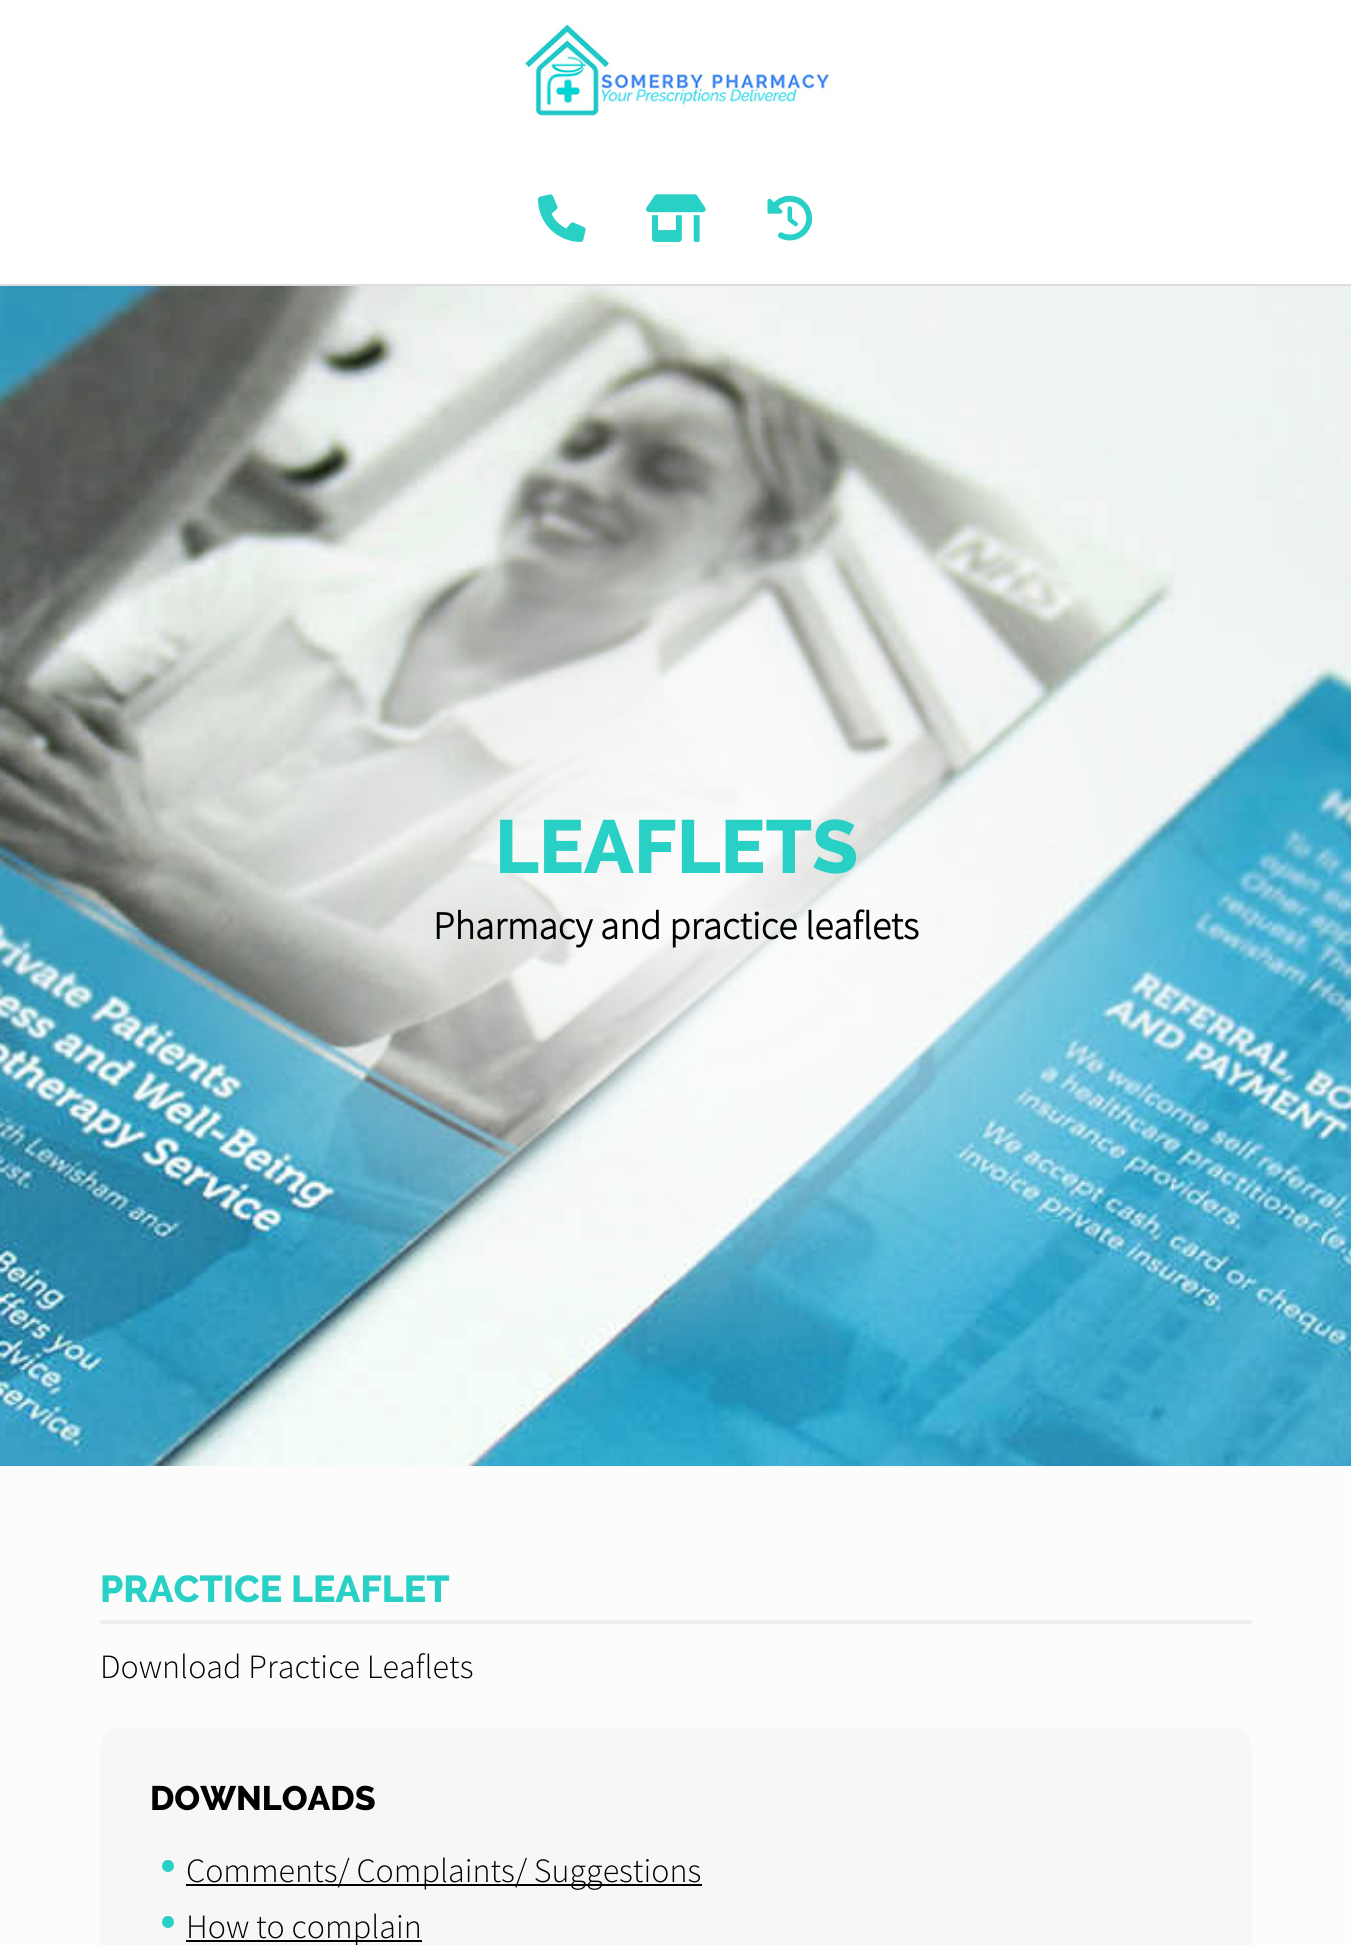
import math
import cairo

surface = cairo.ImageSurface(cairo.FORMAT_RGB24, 1351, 1945)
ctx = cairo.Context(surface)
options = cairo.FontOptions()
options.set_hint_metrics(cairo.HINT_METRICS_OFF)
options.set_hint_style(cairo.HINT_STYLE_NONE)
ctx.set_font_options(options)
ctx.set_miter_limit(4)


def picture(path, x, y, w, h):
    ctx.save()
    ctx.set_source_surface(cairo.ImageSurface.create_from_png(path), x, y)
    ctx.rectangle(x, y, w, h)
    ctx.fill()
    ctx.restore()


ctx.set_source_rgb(0.988, 0.988, 0.988)
ctx.paint()
ctx.set_source_rgb(1, 1, 1)
ctx.rectangle(0, 0, 1351, 284)
ctx.fill()
ctx.set_source_rgb(0.867, 0.867, 0.867)
ctx.rectangle(0, 284, 1351, 2)
ctx.fill()
picture("img1.png", 525, 24, 306, 94)
picture("img2.png", 538, 194, 48, 48)
picture("img3.png", 646, 194, 60, 48)
picture("img4.png", 767, 195, 46, 46)
picture("img5.png", 0, 286, 1351, 1180)
ctx.select_font_face("Raleway ExtraBold")
ctx.set_font_size(75)
ctx.set_source_rgb(0.161, 0.816, 0.773)
ctx.move_to(495, 873)
ctx.show_text("LEAFLETS")
ctx.select_font_face("Source Sans Pro", cairo.FONT_SLANT_NORMAL, cairo.FONT_WEIGHT_BOLD)
ctx.set_font_size(39.1)
ctx.set_source_rgb(0, 0, 0)
ctx.move_to(433, 939)
ctx.show_text("Pharmacy and practice leaflets")
ctx.set_source_rgb(0.937, 0.937, 0.937)
ctx.rectangle(100, 1620, 1152, 4)
ctx.fill()
ctx.select_font_face("Raleway ExtraBold")
ctx.set_font_size(37.5)
ctx.set_source_rgb(0.161, 0.816, 0.773)
ctx.move_to(100, 1602)
ctx.show_text("PRACTICE LEAFLET")
ctx.select_font_face("Source Sans Pro Light")
ctx.set_font_size(34)
ctx.set_source_rgb(0, 0, 0)
ctx.move_to(100, 1678)
ctx.show_text("Download Practice Leaflets")
ctx.set_source_rgb(0.965, 0.965, 0.965)
ctx.new_path()
ctx.move_to(120, 1728)
ctx.line_to(1232, 1728)
ctx.curve_to(1243, 1728, 1252, 1737, 1252, 1748)
ctx.line_to(1252, 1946)
ctx.line_to(100, 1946)
ctx.line_to(100, 1748)
ctx.curve_to(100, 1737, 109, 1728, 120, 1728)
ctx.close_path()
ctx.fill()
ctx.select_font_face("Raleway ExtraBold")
ctx.set_source_rgb(0, 0, 0)
ctx.move_to(150, 1810)
ctx.show_text("DOWNLOADS")
ctx.set_source_rgb(0.161, 0.816, 0.773)
ctx.new_path()
ctx.arc(168, 1866, 6, 0, 2 * math.pi)
ctx.fill()
ctx.set_source_rgb(0, 0, 0)
ctx.rectangle(186, 1884, 516, 2)
ctx.fill()
ctx.select_font_face("Source Sans Pro Light")
ctx.move_to(186, 1882)
ctx.show_text("Comments/ Complaints/ Suggestions")
ctx.set_source_rgb(0.161, 0.816, 0.773)
ctx.new_path()
ctx.arc(168, 1922, 6, 0, 2 * math.pi)
ctx.fill()
ctx.set_source_rgb(0, 0, 0)
ctx.rectangle(186, 1940, 236, 2)
ctx.fill()
ctx.move_to(186, 1938)
ctx.show_text("How to complain")
surface.write_to_png("page.png")
